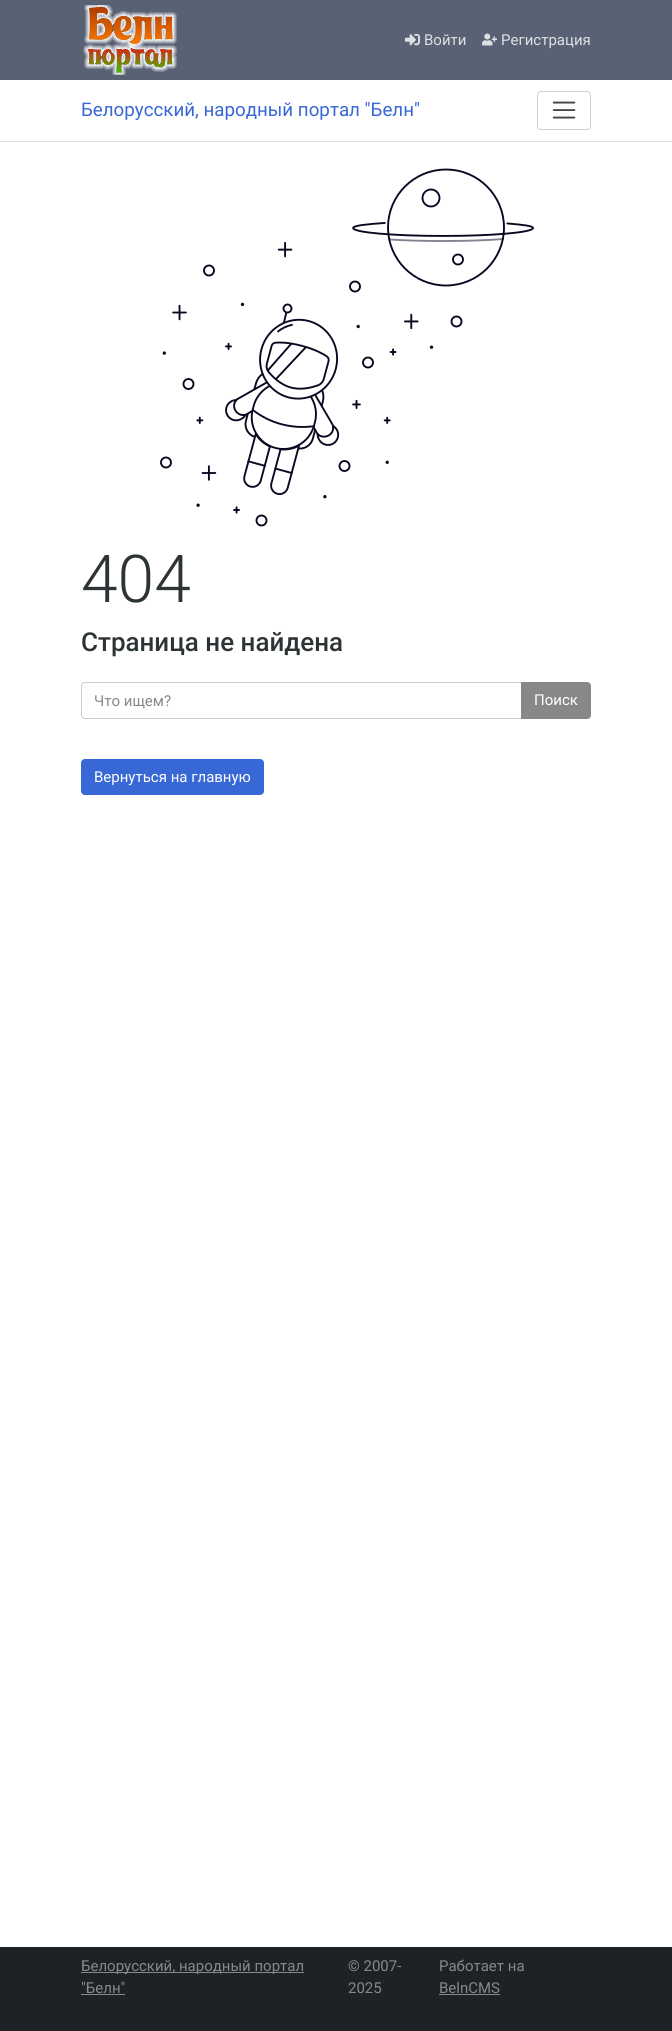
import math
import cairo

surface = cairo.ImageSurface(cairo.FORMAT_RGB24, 672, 2031)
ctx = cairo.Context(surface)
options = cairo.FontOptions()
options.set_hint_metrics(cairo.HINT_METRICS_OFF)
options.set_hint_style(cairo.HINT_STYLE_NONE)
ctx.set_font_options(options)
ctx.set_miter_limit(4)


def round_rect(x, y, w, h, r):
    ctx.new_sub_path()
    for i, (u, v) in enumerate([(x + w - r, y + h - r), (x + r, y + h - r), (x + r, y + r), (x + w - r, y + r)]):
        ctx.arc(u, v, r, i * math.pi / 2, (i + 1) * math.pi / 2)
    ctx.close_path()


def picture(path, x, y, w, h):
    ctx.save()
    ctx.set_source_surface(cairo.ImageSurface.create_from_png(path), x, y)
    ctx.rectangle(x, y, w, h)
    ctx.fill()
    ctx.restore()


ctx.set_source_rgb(1, 1, 1)
ctx.paint()
ctx.set_source_rgb(0.349, 0.384, 0.459)
ctx.rectangle(0, 0, 672, 80)
ctx.fill()
picture("img1.png", 83, 5, 94, 70)
picture("img2.png", 405, 34, 15, 12)
ctx.select_font_face("Roboto")
ctx.set_font_size(15)
ctx.set_source_rgb(0.871, 0.878, 0.89)
ctx.move_to(424, 45)
ctx.show_text("Войти")
picture("img3.png", 482, 33, 15, 13)
ctx.move_to(501, 45)
ctx.show_text("Регистрация")
ctx.set_source_rgb(0.871, 0.886, 0.902)
ctx.rectangle(0, 141, 672, 1)
ctx.fill()
ctx.set_font_size(18.75)
ctx.set_source_rgb(0.22, 0.404, 0.839)
ctx.move_to(81, 116)
ctx.show_text("Белорусский, народный портал \"Белн\"")
round_rect(537.5, 91.5, 53, 38, 3.5)
ctx.set_source_rgb(0.82, 0.82, 0.82)
ctx.set_line_width(1)
ctx.stroke()
picture("img4.png", 552, 101, 24, 18)
picture("img5.png", 160, 168, 374, 359)
ctx.select_font_face("Roboto Light")
ctx.set_font_size(66)
ctx.set_source_rgb(0.176, 0.204, 0.212)
ctx.move_to(81, 602)
ctx.show_text("404")
ctx.select_font_face("Roboto Medium")
ctx.set_font_size(26)
ctx.move_to(81, 651)
ctx.show_text("Страница не найдена")
ctx.new_path()
ctx.move_to(85, 682.5)
ctx.line_to(521.5, 682.5)
ctx.line_to(521.5, 718.5)
ctx.line_to(85, 718.5)
ctx.curve_to(83, 718.5, 81.5, 717, 81.5, 715)
ctx.line_to(81.5, 686)
ctx.curve_to(81.5, 684, 83, 682.5, 85, 682.5)
ctx.close_path()
ctx.set_source_rgb(0.8, 0.8, 0.8)
ctx.stroke()
ctx.select_font_face("Roboto")
ctx.set_font_size(15)
ctx.set_source_rgb(0.533, 0.533, 0.533)
ctx.move_to(94, 706)
ctx.show_text("Что ищем?")
ctx.new_path()
ctx.move_to(521.5, 682.5)
ctx.line_to(587, 682.5)
ctx.curve_to(589, 682.5, 590.5, 684, 590.5, 686)
ctx.line_to(590.5, 715)
ctx.curve_to(590.5, 717, 589, 718.5, 587, 718.5)
ctx.line_to(521.5, 718.5)
ctx.close_path()
ctx.fill_preserve()
ctx.stroke()
ctx.set_source_rgb(1, 1, 1)
ctx.move_to(534, 705)
ctx.show_text("Поиск")
ctx.set_source_rgb(0.22, 0.404, 0.839)
round_rect(81.5, 759.5, 182, 35, 3.5)
ctx.fill_preserve()
ctx.stroke()
ctx.set_source_rgb(1, 1, 1)
ctx.move_to(94, 782)
ctx.show_text("Вернуться на главную")
ctx.set_source_rgb(0.118, 0.133, 0.141)
ctx.rectangle(0, 1947, 672, 84)
ctx.fill()
ctx.set_source_rgb(0.533, 0.533, 0.533)
ctx.rectangle(81, 1972, 223, 1)
ctx.fill()
ctx.move_to(81, 1971)
ctx.show_text("Белорусский, народный портал")
ctx.move_to(81, 1993)
ctx.show_text("\"Белн\"")
ctx.rectangle(81, 1994, 44, 1)
ctx.fill()
ctx.move_to(348, 1971)
ctx.show_text("© 2007-")
ctx.move_to(348, 1993)
ctx.show_text("2025")
ctx.move_to(439, 1971)
ctx.show_text("Работает на")
ctx.move_to(439, 1993)
ctx.show_text("BelnCMS")
ctx.rectangle(439, 1994, 61, 1)
ctx.fill()
surface.write_to_png("page.png")
